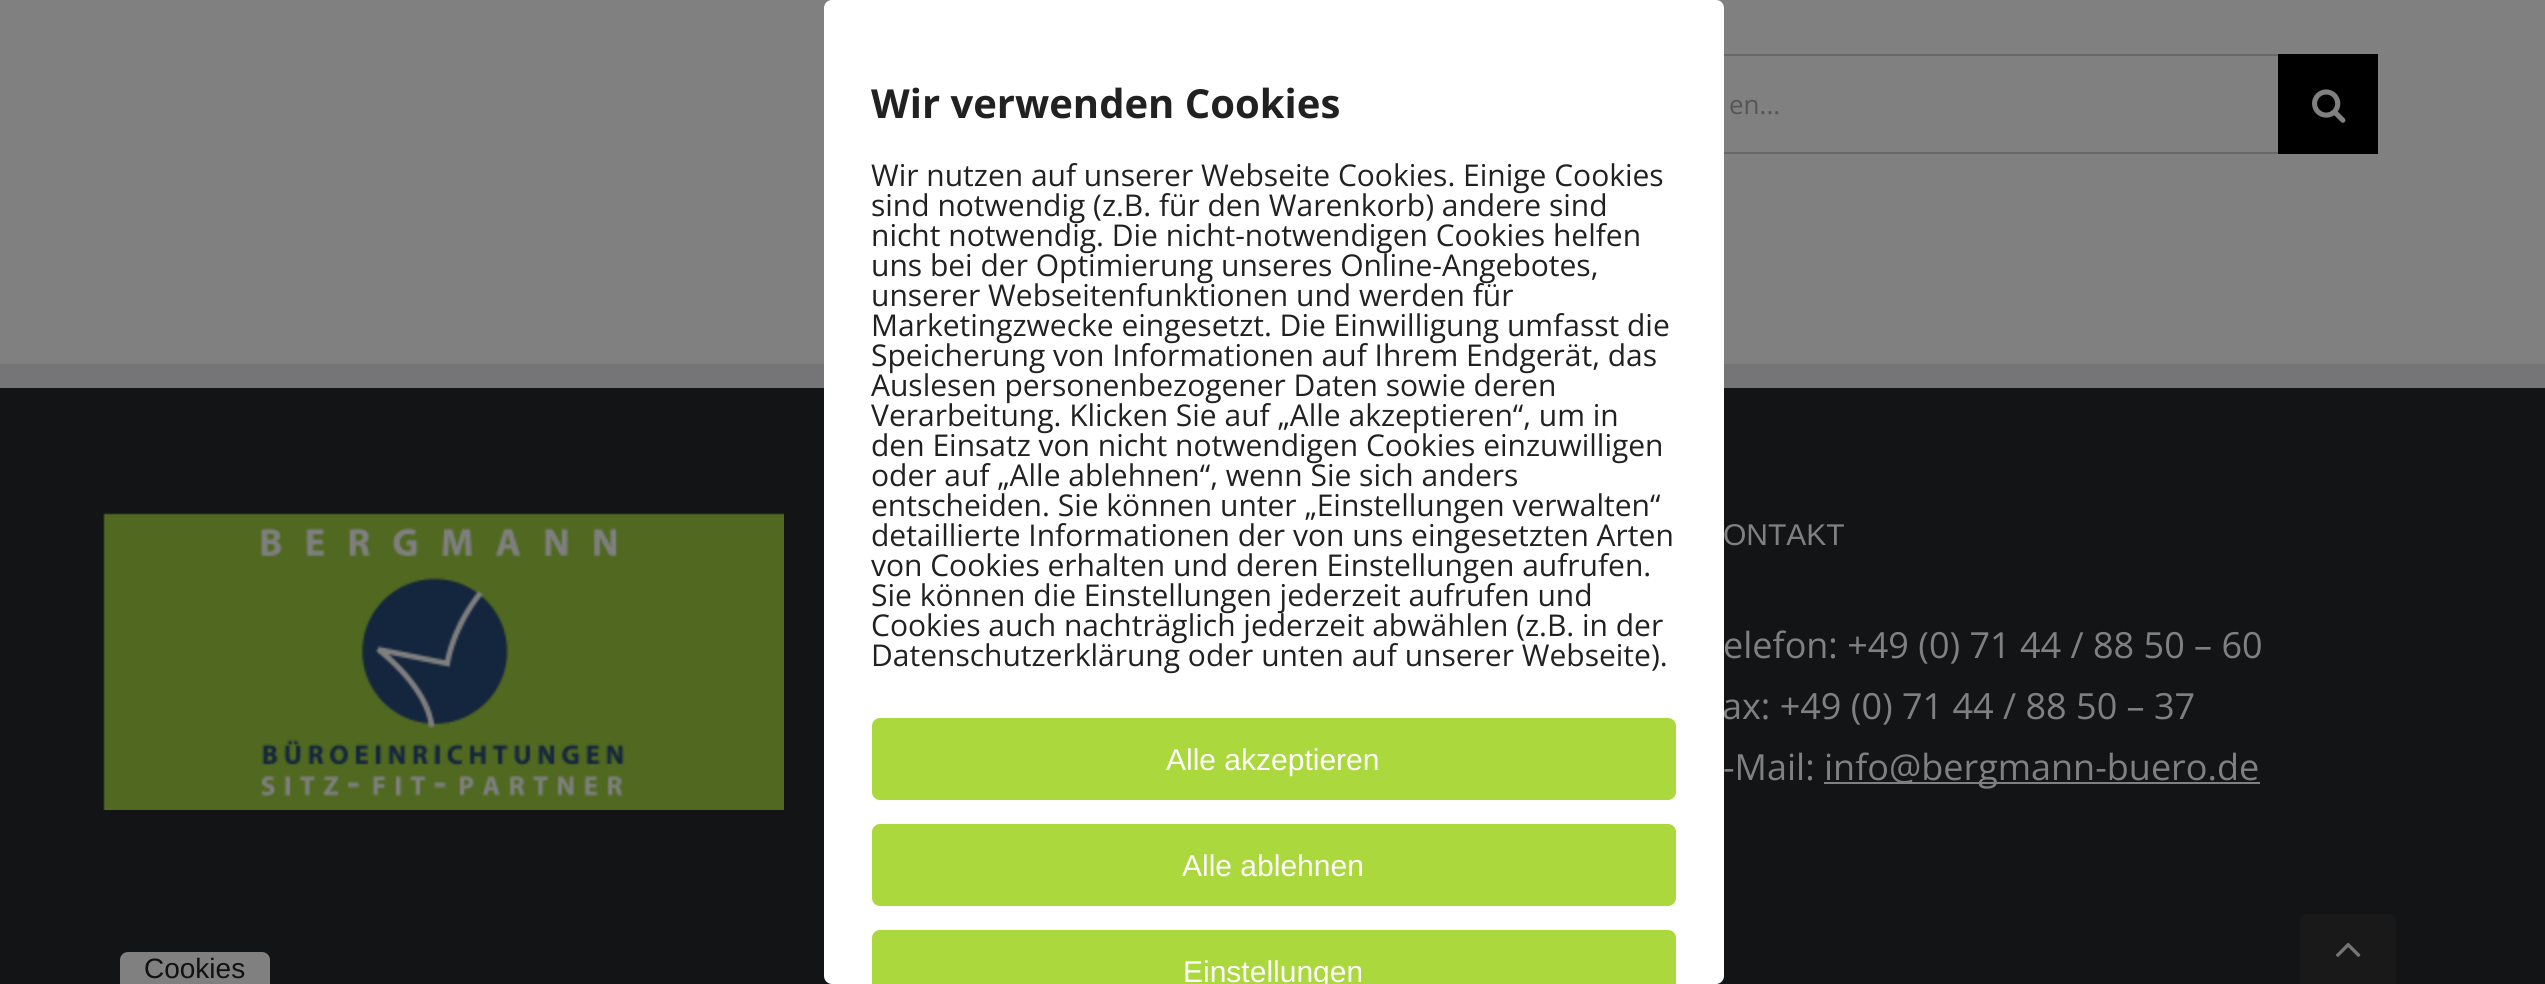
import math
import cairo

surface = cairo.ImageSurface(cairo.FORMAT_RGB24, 2545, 984)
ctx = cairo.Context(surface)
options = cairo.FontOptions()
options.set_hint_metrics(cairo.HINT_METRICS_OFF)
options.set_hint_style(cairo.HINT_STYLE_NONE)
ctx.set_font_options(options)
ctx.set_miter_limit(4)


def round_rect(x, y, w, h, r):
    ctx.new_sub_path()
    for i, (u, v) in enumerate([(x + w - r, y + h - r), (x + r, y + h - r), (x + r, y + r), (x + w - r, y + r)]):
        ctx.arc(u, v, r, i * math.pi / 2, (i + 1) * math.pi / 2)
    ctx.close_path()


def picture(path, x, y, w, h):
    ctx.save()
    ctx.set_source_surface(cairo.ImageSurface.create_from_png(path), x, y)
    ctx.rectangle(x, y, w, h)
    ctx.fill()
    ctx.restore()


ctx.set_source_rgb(0.502, 0.502, 0.502)
ctx.paint()
ctx.set_source_rgb(0.078, 0.082, 0.086)
ctx.rectangle(0, 388, 2545, 596)
ctx.fill()
ctx.set_source_rgb(0.459, 0.459, 0.467)
ctx.rectangle(0, 364, 2545, 24)
ctx.fill()
ctx.select_font_face("Open Sans")
ctx.set_font_size(36)
ctx.set_source_rgb(0.502, 0.502, 0.502)
ctx.move_to(1722, 719)
ctx.show_text("ax: +49 (0) 71 44 / 88 50 – 37")
ctx.set_source_rgb(1, 1, 1)
round_rect(824, 0, 900, 984, 8)
ctx.fill()
ctx.select_font_face("Open Sans", cairo.FONT_SLANT_NORMAL, cairo.FONT_WEIGHT_BOLD)
ctx.set_font_size(40)
ctx.set_source_rgb(0.129, 0.129, 0.129)
ctx.move_to(871, 118)
ctx.show_text("Wir verwenden Cookies")
ctx.select_font_face("Open Sans")
ctx.set_font_size(30)
ctx.move_to(871, 186)
ctx.show_text("Wir nutzen auf unserer Webseite Cookies. Einige Cookies")
ctx.move_to(871, 216)
ctx.show_text("sind notwendig (z.B. für den Warenkorb) andere sind")
ctx.move_to(871, 246)
ctx.show_text("nicht notwendig. Die nicht-notwendigen Cookies helfen")
ctx.move_to(871, 276)
ctx.show_text("uns bei der Optimierung unseres Online-Angebotes,")
ctx.move_to(871, 306)
ctx.show_text("unserer Webseitenfunktionen und werden für")
ctx.move_to(871, 336)
ctx.show_text("Marketingzwecke eingesetzt. Die Einwilligung umfasst die")
ctx.move_to(871, 366)
ctx.show_text("Speicherung von Informationen auf Ihrem Endgerät, das")
ctx.move_to(871, 396)
ctx.show_text("Auslesen personenbezogener Daten sowie deren")
ctx.move_to(871, 426)
ctx.show_text("Verarbeitung. Klicken Sie auf „Alle akzeptieren“, um in")
ctx.move_to(871, 456)
ctx.show_text("den Einsatz von nicht notwendigen Cookies einzuwilligen")
ctx.move_to(871, 486)
ctx.show_text("oder auf „Alle ablehnen“, wenn Sie sich anders")
ctx.move_to(871, 516)
ctx.show_text("entscheiden. Sie können unter „Einstellungen verwalten“")
ctx.move_to(871, 546)
ctx.show_text("detaillierte Informationen der von uns eingesetzten Arten")
ctx.move_to(871, 576)
ctx.show_text("von Cookies erhalten und deren Einstellungen aufrufen.")
ctx.move_to(871, 606)
ctx.show_text("Sie können die Einstellungen jederzeit aufrufen und")
ctx.move_to(871, 636)
ctx.show_text("Cookies auch nachträglich jederzeit abwählen (z.B. in der")
ctx.move_to(871, 666)
ctx.show_text("Datenschutzerklärung oder unten auf unserer Webseite).")
ctx.set_source_rgb(0.671, 0.847, 0.239)
round_rect(872, 718, 804, 82, 8)
ctx.fill()
ctx.select_font_face("Liberation Sans")
ctx.set_source_rgb(1, 1, 1)
ctx.move_to(1166, 770)
ctx.show_text("Alle akzeptieren")
ctx.set_source_rgb(0.671, 0.847, 0.239)
round_rect(872, 824, 804, 82, 8)
ctx.fill()
ctx.set_source_rgb(1, 1, 1)
ctx.move_to(1182, 876)
ctx.show_text("Alle ablehnen")
ctx.set_source_rgb(0.671, 0.847, 0.239)
ctx.new_path()
ctx.move_to(880, 930)
ctx.line_to(1668, 930)
ctx.curve_to(1672.5, 930, 1676, 933.5, 1676, 938)
ctx.line_to(1676, 984)
ctx.line_to(872, 984)
ctx.line_to(872, 938)
ctx.curve_to(872, 933.5, 875.5, 930, 880, 930)
ctx.close_path()
ctx.fill()
ctx.set_source_rgb(1, 1, 1)
ctx.move_to(1183, 982)
ctx.show_text("Einstellungen")
ctx.set_source_rgb(0.412, 0.412, 0.412)
ctx.rectangle(1724, 54, 554, 2)
ctx.fill()
ctx.rectangle(1724, 152, 554, 2)
ctx.fill()
ctx.select_font_face("Open Sans")
ctx.set_font_size(26)
ctx.set_source_rgb(0.333, 0.333, 0.333)
ctx.move_to(1729, 114)
ctx.show_text("en...")
ctx.set_source_rgb(0, 0, 0)
ctx.rectangle(2278, 54, 100, 100)
ctx.fill()
picture("img1.png", 2312, 89, 34, 34)
picture("img2.png", 103, 513, 681, 297)
ctx.select_font_face("Liberation Sans")
ctx.set_font_size(30)
ctx.set_source_rgb(0.502, 0.502, 0.502)
ctx.move_to(1723, 545)
ctx.show_text("ONTAKT")
ctx.select_font_face("Open Sans")
ctx.set_font_size(36)
ctx.move_to(1723, 658)
ctx.show_text("elefon: +49 (0) 71 44 / 88 50 – 60")
ctx.move_to(1723, 780)
ctx.show_text("-Mail:")
ctx.rectangle(1824, 782, 436, 2)
ctx.fill()
ctx.move_to(1824, 780)
ctx.show_text("info@bergmann-buero.de")
ctx.new_path()
ctx.move_to(128, 952)
ctx.line_to(262, 952)
ctx.curve_to(266.5, 952, 270, 955.5, 270, 960)
ctx.line_to(270, 984)
ctx.line_to(120, 984)
ctx.line_to(120, 960)
ctx.curve_to(120, 955.5, 123.5, 952, 128, 952)
ctx.close_path()
ctx.fill()
ctx.select_font_face("Liberation Sans")
ctx.set_font_size(28)
ctx.set_source_rgb(0.067, 0.067, 0.067)
ctx.move_to(144, 978)
ctx.show_text("Cookies")
ctx.set_source_rgb(0.098, 0.098, 0.098)
ctx.new_path()
ctx.move_to(2308, 914)
ctx.line_to(2388, 914)
ctx.curve_to(2392.5, 914, 2396, 917.5, 2396, 922)
ctx.line_to(2396, 984)
ctx.line_to(2300, 984)
ctx.line_to(2300, 922)
ctx.curve_to(2300, 917.5, 2303.5, 914, 2308, 914)
ctx.close_path()
ctx.fill()
picture("img3.png", 2336, 942, 25, 15)
surface.write_to_png("page.png")
